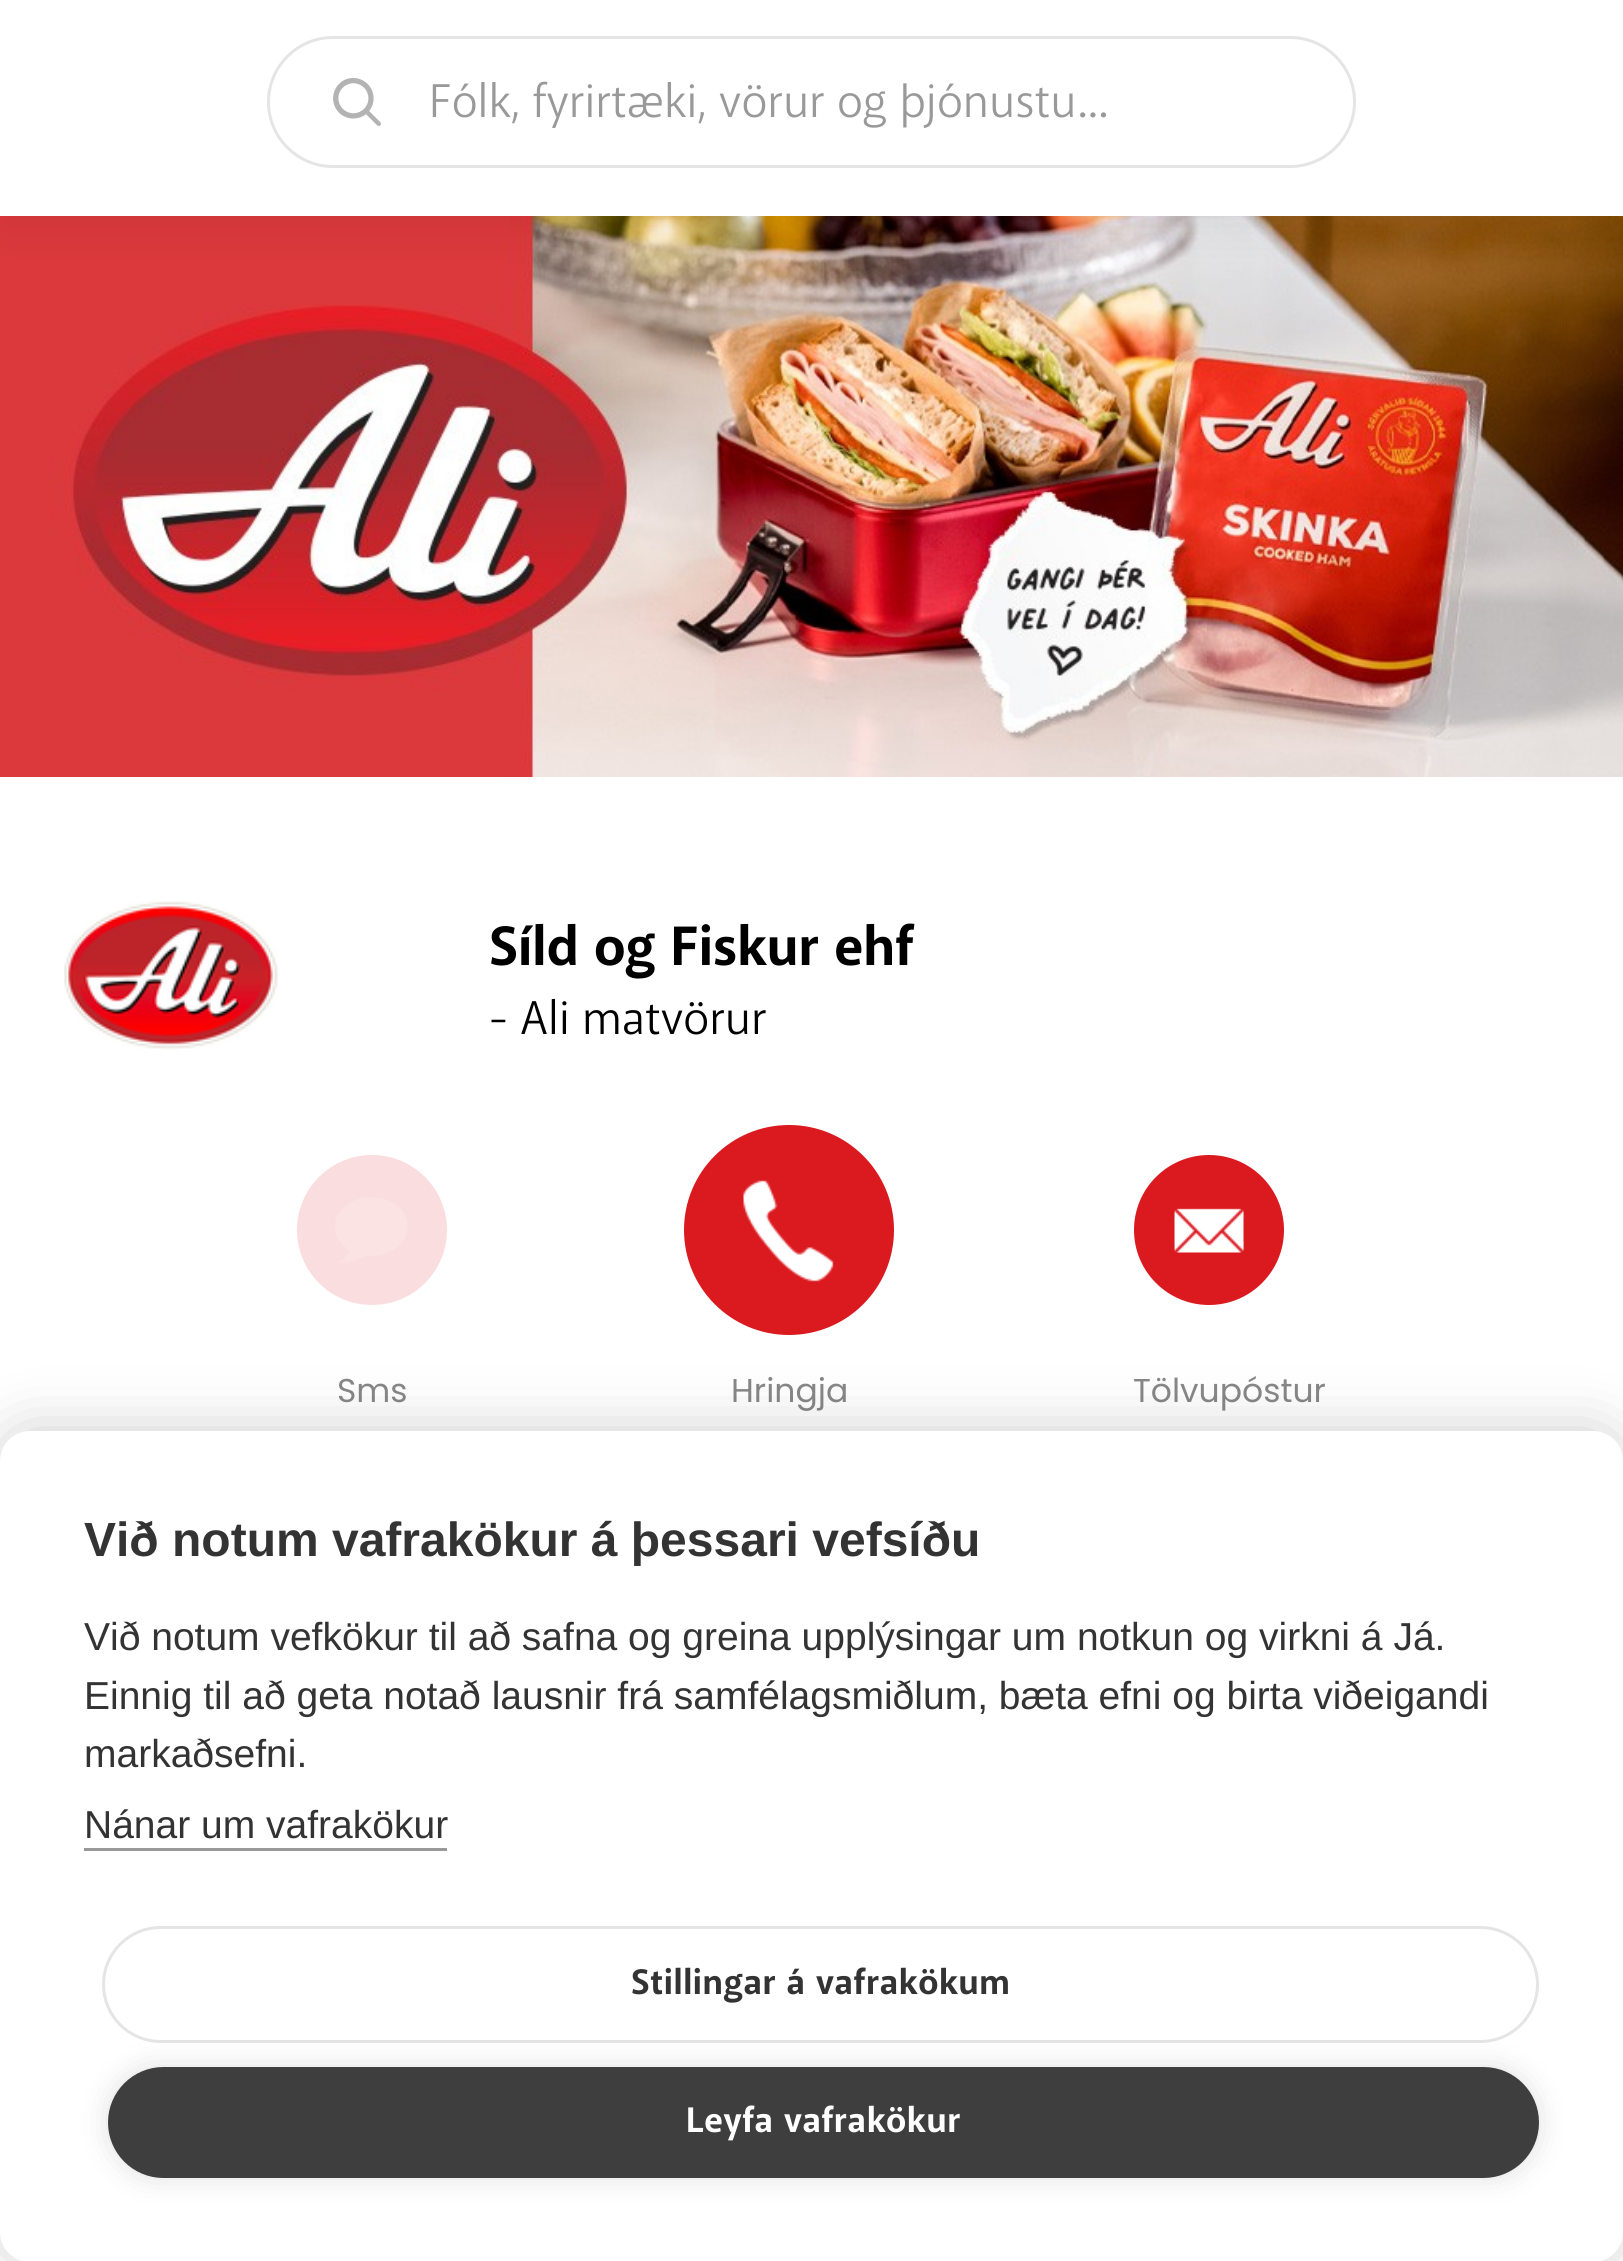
import math
import cairo

surface = cairo.ImageSurface(cairo.FORMAT_RGB24, 1623, 2261)
ctx = cairo.Context(surface)
options = cairo.FontOptions()
options.set_hint_metrics(cairo.HINT_METRICS_OFF)
options.set_hint_style(cairo.HINT_STYLE_NONE)
ctx.set_font_options(options)
ctx.set_miter_limit(4)


def spaced_text(x, y, s, letter, word):
    ctx.move_to(x, y)
    for ch in s:
        ctx.show_text(ch)
        ctx.rel_move_to(letter + word * (ch == ' '), 0)


def round_rect(x, y, w, h, r):
    ctx.new_sub_path()
    for i, (u, v) in enumerate([(x + w - r, y + h - r), (x + r, y + h - r), (x + r, y + r), (x + w - r, y + r)]):
        ctx.arc(u, v, r, i * math.pi / 2, (i + 1) * math.pi / 2)
    ctx.close_path()


def shadow(x, y, w, h, r, blur, alpha):
    ctx.push_group_with_content(cairo.CONTENT_ALPHA)
    ctx.set_operator(cairo.OPERATOR_SOURCE)
    for i in range(15, -16, -2):
        e = blur * i / 6
        if min(w, h) + 2 * e > 0:
            ctx.set_source_rgba(0, 0, 0, alpha * math.erfc((i - 1) / 8.5) / 2)
            round_rect(x - e, y - e, w + 2 * e, h + 2 * e, max(0, min(r + e + blur * .6, min(w, h) / 2 + e)))
            ctx.fill()
    ctx.mask(ctx.pop_group())


def picture(path, x, y, w, h):
    ctx.save()
    ctx.set_source_surface(cairo.ImageSurface.create_from_png(path), x, y)
    ctx.rectangle(x, y, w, h)
    ctx.fill()
    ctx.restore()


ctx.set_source_rgb(1, 1, 1)
ctx.paint()
picture("img2.png", 0, 216, 1623, 561)
ctx.set_source_rgb(0, 0, 0)
shadow(0, 15, 1623, 216, 0, 22.5, 0.07)
ctx.set_source_rgb(1, 1, 1)
ctx.rectangle(0, 0, 1623, 216)
ctx.fill()
round_rect(268.5, 37.5, 1086, 129, 64.5)
ctx.set_source_rgb(0.898, 0.898, 0.898)
ctx.set_line_width(3)
ctx.stroke()
picture("img1.png", 333, 78, 48, 48)
ctx.select_font_face("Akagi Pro")
ctx.set_font_size(48)
ctx.set_source_rgb(0.6, 0.6, 0.6)
ctx.move_to(429, 117)
ctx.show_text("Fólk, fyrirtæki, vörur og þjónustu...")
picture("img3.png", 64, 901, 214, 149)
ctx.select_font_face("Akagi Pro SemiBold")
ctx.set_font_size(56.25)
ctx.set_source_rgb(0, 0, 0)
ctx.move_to(489, 965)
ctx.show_text("Síld og Fiskur ehf")
ctx.select_font_face("Akagi Pro")
ctx.set_font_size(48)
ctx.move_to(489, 1034)
ctx.show_text("- Ali matvörur")
ctx.set_source_rgb(0.98, 0.867, 0.871)
ctx.new_path()
ctx.arc(372, 1230, 75, 0, 2 * math.pi)
ctx.fill()
picture("img4.png", 335, 1197, 73, 66)
ctx.select_font_face("Poppins")
ctx.set_font_size(33)
ctx.set_source_rgb(0.529, 0.529, 0.529)
ctx.move_to(337, 1402)
ctx.show_text("Sms")
ctx.set_source_rgb(0.859, 0.102, 0.125)
ctx.new_path()
ctx.arc(789, 1230, 105, 0, 2 * math.pi)
ctx.fill()
picture("img5.png", 743, 1180, 91, 102)
ctx.set_source_rgb(0.529, 0.529, 0.529)
ctx.move_to(731, 1402)
ctx.show_text("Hringja")
ctx.set_source_rgb(0.859, 0.102, 0.125)
ctx.new_path()
ctx.arc(1209, 1230, 75, 0, 2 * math.pi)
ctx.fill()
picture("img6.png", 1174, 1208, 70, 45)
ctx.set_source_rgb(0.529, 0.529, 0.529)
ctx.move_to(1133, 1402)
ctx.show_text("Tölvupóstur")
ctx.set_source_rgb(0, 0, 0)
shadow(0, 1431, 1623, 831, 30, 30, 0.2)
ctx.set_source_rgb(1, 1, 1)
round_rect(0, 1431, 1623, 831, 30)
ctx.fill()
ctx.select_font_face("Liberation Sans", cairo.FONT_SLANT_NORMAL, cairo.FONT_WEIGHT_BOLD)
ctx.set_font_size(48)
ctx.set_source_rgb(0.2, 0.2, 0.2)
ctx.move_to(84, 1556)
ctx.show_text("Við notum vafrakökur á þessari vefsíðu")
ctx.select_font_face("Liberation Sans")
ctx.set_font_size(39)
ctx.move_to(84, 1650)
ctx.show_text("Við notum vefkökur til að safna og greina upplýsingar um notkun og virkni á Já.")
ctx.move_to(84, 1709)
ctx.show_text("Einnig til að geta notað lausnir frá samfélagsmiðlum, bæta efni og birta viðeigandi")
ctx.move_to(84, 1767)
ctx.show_text("markaðsefni.")
ctx.move_to(84, 1838)
ctx.show_text("Nánar um vafrakökur")
ctx.set_source_rgb(0.6, 0.6, 0.6)
ctx.rectangle(84, 1848, 363, 3)
ctx.fill()
round_rect(103.5, 1927.5, 1434, 114, 57)
ctx.set_source_rgb(0.898, 0.898, 0.898)
ctx.stroke()
ctx.select_font_face("Akagi Pro SemiBold")
ctx.set_font_size(36)
ctx.set_source_rgb(0.2, 0.2, 0.2)
spaced_text(631, 1994, "Stillingar á vafrakökum", 0.6, 0)
ctx.set_source_rgb(0, 0, 0)
shadow(108, 2067, 1431, 111, 55.5, 15, 0.12)
ctx.set_source_rgb(0.243, 0.243, 0.243)
round_rect(108, 2067, 1431, 111, 55.5)
ctx.fill()
ctx.set_source_rgb(1, 1, 1)
spaced_text(686, 2132, "Leyfa vafrakökur", 0.6, 0)
surface.write_to_png("page.png")
